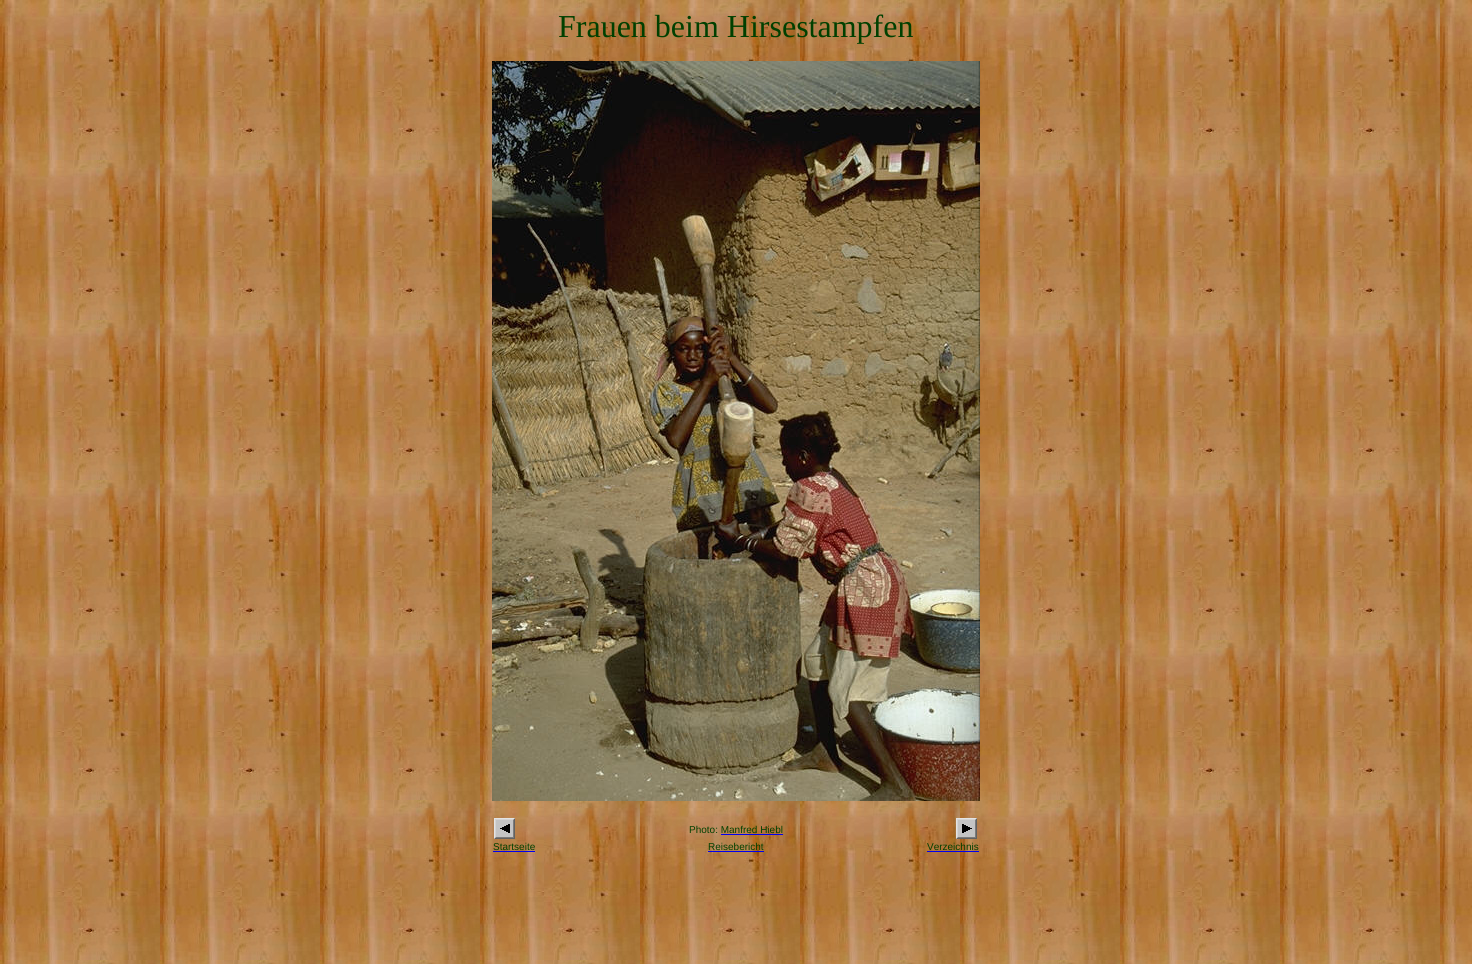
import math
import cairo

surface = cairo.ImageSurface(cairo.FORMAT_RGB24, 1472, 964)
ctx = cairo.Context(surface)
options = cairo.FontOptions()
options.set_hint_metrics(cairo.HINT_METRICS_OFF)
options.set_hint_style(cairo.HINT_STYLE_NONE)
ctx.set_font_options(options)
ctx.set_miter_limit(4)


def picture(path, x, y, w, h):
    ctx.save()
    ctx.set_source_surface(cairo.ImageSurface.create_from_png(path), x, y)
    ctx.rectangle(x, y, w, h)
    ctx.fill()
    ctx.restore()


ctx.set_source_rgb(1, 1, 1)
ctx.paint()
picture("img1.png", 0, 0, 1472, 964)
ctx.select_font_face("Liberation Serif")
ctx.set_font_size(32)
ctx.set_source_rgb(0, 0.251, 0)
ctx.move_to(558, 37)
ctx.show_text("Frauen beim Hirsestampfen")
picture("img2.png", 492, 61, 488, 740)
picture("img3.png", 494, 818, 21, 21)
ctx.select_font_face("Liberation Sans")
ctx.set_font_size(10)
ctx.move_to(689, 833)
ctx.show_text("Photo: Manfred Hiebl")
ctx.set_source_rgb(0, 0, 0.933)
ctx.rectangle(721, 834, 62, 1)
ctx.fill()
picture("img4.png", 956, 818, 21, 21)
ctx.set_source_rgb(0, 0.251, 0)
ctx.move_to(493, 850)
ctx.show_text("Startseite")
ctx.set_source_rgb(0, 0, 0.933)
ctx.rectangle(493, 851, 42, 1)
ctx.fill()
ctx.set_source_rgb(0, 0.251, 0)
ctx.move_to(708, 850)
ctx.show_text("Reisebericht")
ctx.set_source_rgb(0, 0, 0.933)
ctx.rectangle(708, 851, 56, 1)
ctx.fill()
ctx.set_source_rgb(0, 0.251, 0)
ctx.move_to(927, 850)
ctx.show_text("Verzeichnis")
ctx.set_source_rgb(0, 0, 0.933)
ctx.rectangle(927, 851, 52, 1)
ctx.fill()
surface.write_to_png("page.png")
